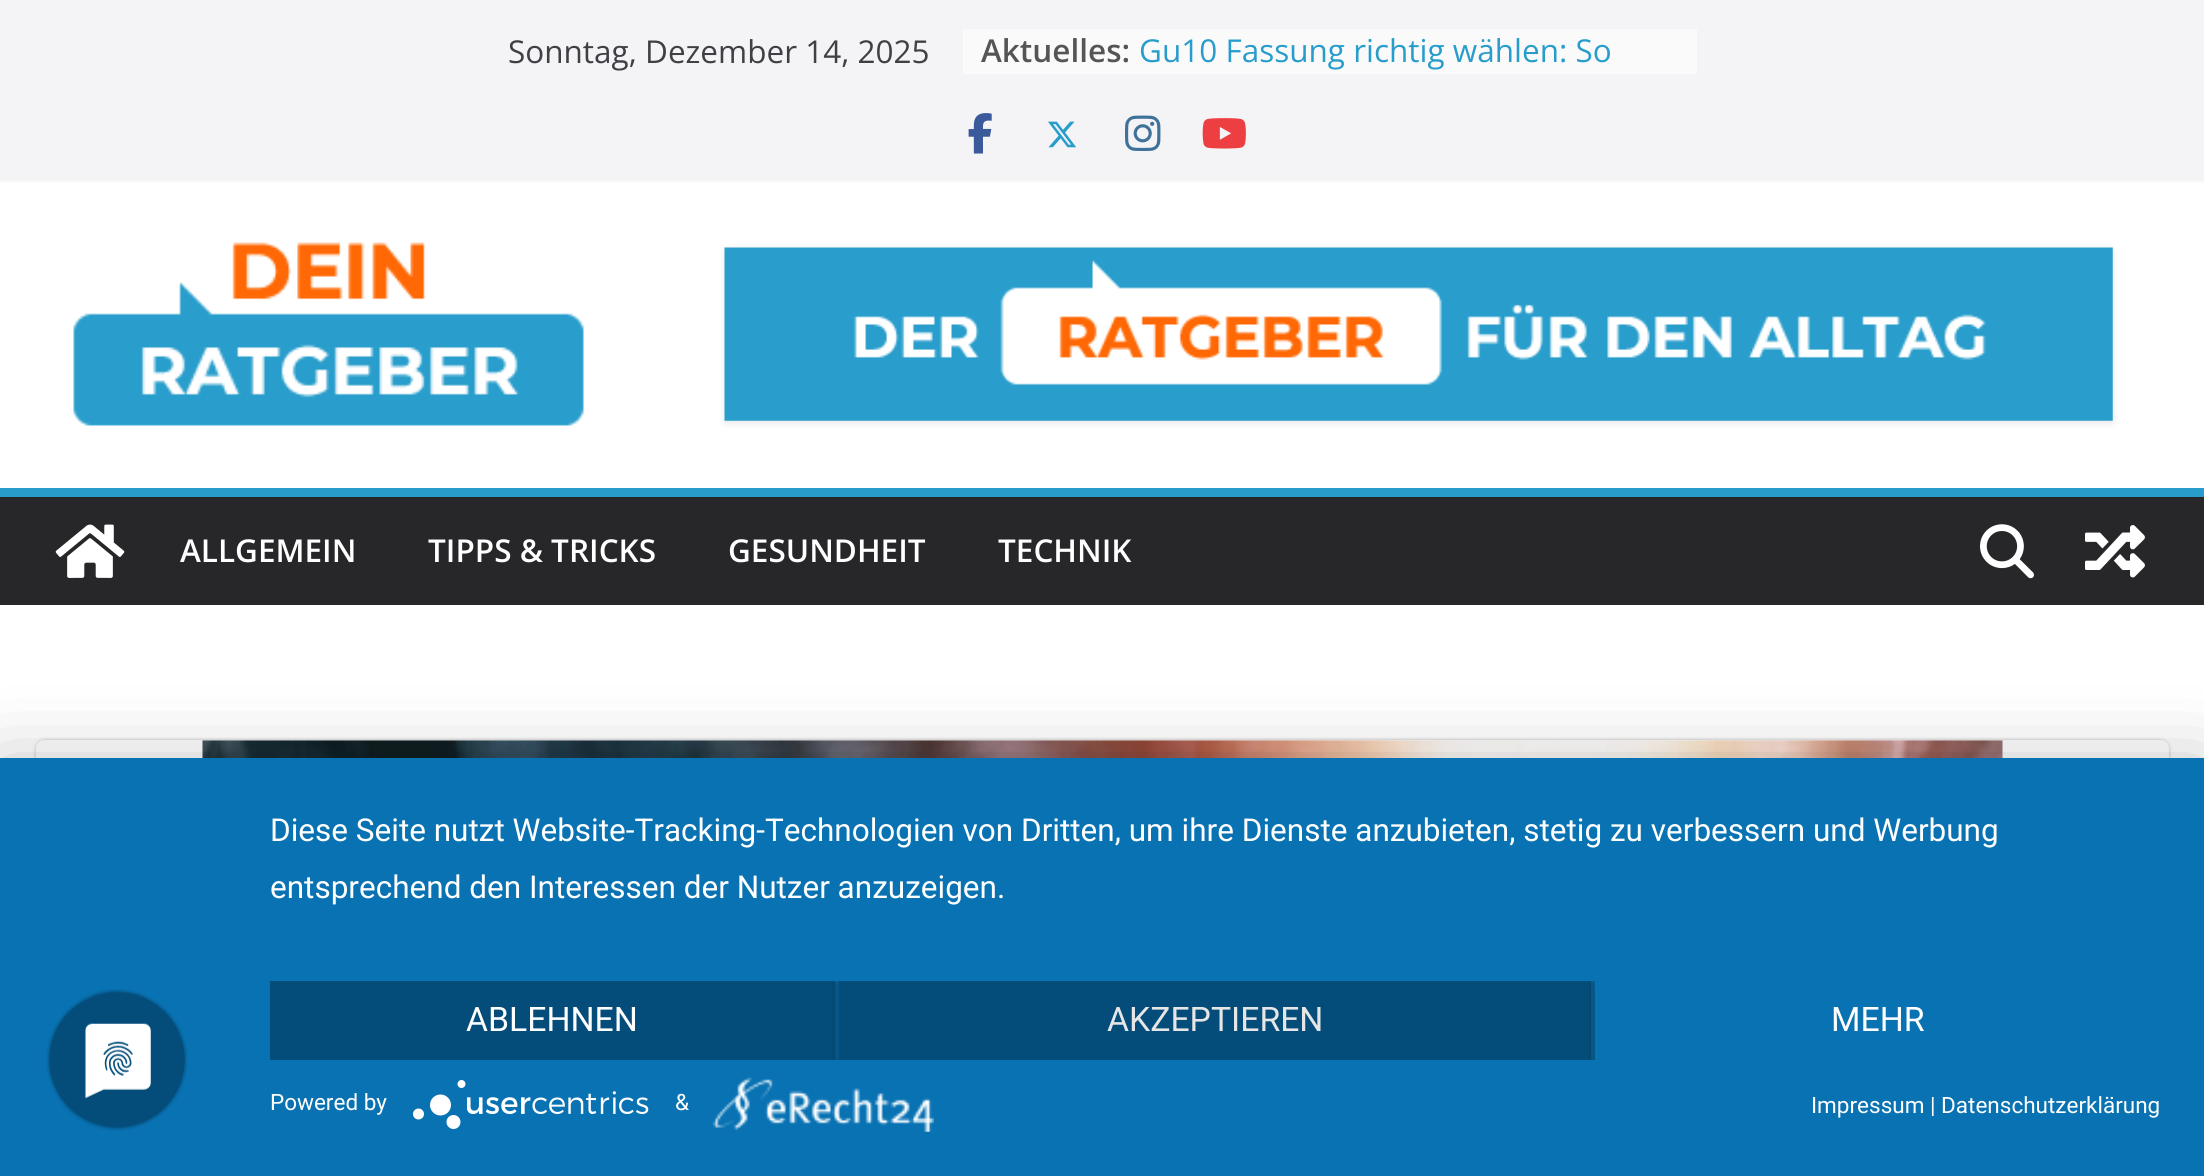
import math
import cairo

surface = cairo.ImageSurface(cairo.FORMAT_RGB24, 2204, 1176)
ctx = cairo.Context(surface)
options = cairo.FontOptions()
options.set_hint_metrics(cairo.HINT_METRICS_OFF)
options.set_hint_style(cairo.HINT_STYLE_NONE)
ctx.set_font_options(options)
ctx.set_miter_limit(4)


def round_rect(x, y, w, h, r):
    ctx.new_sub_path()
    for i, (u, v) in enumerate([(x + w - r, y + h - r), (x + r, y + h - r), (x + r, y + r), (x + w - r, y + r)]):
        ctx.arc(u, v, r, i * math.pi / 2, (i + 1) * math.pi / 2)
    ctx.close_path()


def shadow(x, y, w, h, r, blur, alpha):
    ctx.push_group_with_content(cairo.CONTENT_ALPHA)
    ctx.set_operator(cairo.OPERATOR_SOURCE)
    for i in range(15, -16, -2):
        e = blur * i / 6
        if min(w, h) + 2 * e > 0:
            ctx.set_source_rgba(0, 0, 0, alpha * math.erfc((i - 1) / 8.5) / 2)
            round_rect(x - e, y - e, w + 2 * e, h + 2 * e, max(0, min(r + e + blur * .6, min(w, h) / 2 + e)))
            ctx.fill()
    ctx.mask(ctx.pop_group())


def picture(path, x, y, w, h):
    ctx.save()
    ctx.set_source_surface(cairo.ImageSurface.create_from_png(path), x, y)
    ctx.rectangle(x, y, w, h)
    ctx.fill()
    ctx.restore()


ctx.set_source_rgb(1, 1, 1)
ctx.paint()
ctx.set_source_rgb(0, 0, 0)
shadow(0, 0, 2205, 180, 0, 2, 0.1)
ctx.set_source_rgb(0.957, 0.957, 0.961)
ctx.rectangle(0, 0, 2204, 180)
ctx.fill()
ctx.select_font_face("Open Sans")
ctx.set_font_size(31.5)
ctx.set_source_rgb(0.247, 0.247, 0.275)
ctx.move_to(508, 63)
ctx.show_text("Sonntag, Dezember 14, 2025")
ctx.set_source_rgb(0.98, 0.98, 0.98)
ctx.rectangle(963, 29, 734, 45)
ctx.fill()
ctx.select_font_face("Open Sans SemiBold")
ctx.set_source_rgb(0.333, 0.333, 0.333)
ctx.move_to(981, 62)
ctx.show_text("Aktuelles:")
ctx.select_font_face("Open Sans")
ctx.set_source_rgb(0.157, 0.616, 0.8)
ctx.move_to(1139, 62)
ctx.show_text("Gu10 Fassung richtig wählen: So")
picture("img1.png", 968, 113, 24, 41)
picture("img2.png", 1048, 121, 29, 27)
picture("img3.png", 1125, 115, 36, 36)
picture("img4.png", 1202, 118, 44, 31)
picture("img5.png", 73, 242, 511, 184)
ctx.set_source_rgb(0, 0, 0)
shadow(725, 250, 1388, 173, 0, 3.5, 0.1)
picture("img6.png", 724, 247, 1389, 174)
ctx.set_source_rgb(0.153, 0.153, 0.165)
ctx.rectangle(0, 497, 2204, 108)
ctx.fill()
ctx.set_source_rgb(0.157, 0.616, 0.8)
ctx.rectangle(0, 488, 2204, 9)
ctx.fill()
picture("img7.png", 55, 524, 70, 54)
ctx.select_font_face("Open Sans SemiBold")
ctx.set_source_rgb(1, 1, 1)
ctx.move_to(180, 562)
ctx.show_text("ALLGEMEIN")
ctx.move_to(428, 562)
ctx.show_text("TIPPS & TRICKS")
ctx.move_to(728, 562)
ctx.show_text("GESUNDHEIT")
ctx.move_to(998, 562)
ctx.show_text("TECHNIK")
picture("img8.png", 1980, 524, 54, 55)
picture("img9.png", 2085, 525, 60, 53)
ctx.save()
ctx.set_fill_rule(cairo.FILL_RULE_EVEN_ODD)
ctx.new_path()
ctx.move_to(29, 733)
ctx.line_to(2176, 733)
ctx.line_to(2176, 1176)
ctx.line_to(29, 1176)
ctx.close_path()
ctx.move_to(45, 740)
ctx.line_to(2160, 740)
ctx.curve_to(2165, 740, 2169, 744, 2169, 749)
ctx.line_to(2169, 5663)
ctx.curve_to(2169, 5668, 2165, 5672, 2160, 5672)
ctx.line_to(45, 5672)
ctx.curve_to(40, 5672, 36, 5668, 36, 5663)
ctx.line_to(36, 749)
ctx.curve_to(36, 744, 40, 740, 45, 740)
ctx.close_path()
ctx.clip()
ctx.set_source_rgb(0, 0, 0)
shadow(36, 740, 2133, 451, 9, 2, 0.24)
ctx.restore()
picture("img10.png", 202, 740, 1801, 18)
ctx.set_source_rgb(0, 0, 0)
shadow(0, 772, 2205, 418, 0, 40.5, 0.3)
ctx.set_source_rgb(0.035, 0.447, 0.702)
ctx.rectangle(0, 758, 2204, 418)
ctx.fill()
picture("img11.png", 46, 989, 142, 142)
ctx.select_font_face("Roboto")
ctx.set_source_rgb(1, 1, 1)
ctx.move_to(270, 841)
ctx.show_text("Diese Seite nutzt Website-Tracking-Technologien von Dritten, um ihre Dienste anzubieten, stetig zu verbessern und Werbung")
ctx.move_to(270, 898)
ctx.show_text("entsprechend den Interessen der Nutzer anzuzeigen.")
ctx.save()
ctx.rectangle(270, 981, 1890, 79)
ctx.clip()
ctx.set_source_rgb(0, 0, 0)
shadow(270, 983, 565, 79, 0, 4.5, 0.4)
ctx.restore()
ctx.set_source_rgb(0.016, 0.302, 0.478)
ctx.rectangle(270, 981, 565, 79)
ctx.fill()
ctx.set_font_size(33.75)
ctx.set_source_rgb(1, 1, 1)
ctx.move_to(466, 1031)
ctx.show_text("ABLEHNEN")
ctx.save()
ctx.rectangle(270, 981, 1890, 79)
ctx.clip()
ctx.set_source_rgb(0, 0, 0)
shadow(839, 983, 752, 79, 0, 4.5, 0.4)
ctx.restore()
ctx.set_source_rgb(0.016, 0.302, 0.478)
ctx.rectangle(839, 981, 752, 79)
ctx.fill()
ctx.set_source_rgb(0.902, 0.902, 0.902)
ctx.move_to(1107, 1031)
ctx.show_text("AKZEPTIEREN")
ctx.save()
ctx.rectangle(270, 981, 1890, 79)
ctx.clip()
ctx.set_source_rgb(0, 0, 0)
shadow(1595, 983, 565, 79, 0, 4.5, 0.4)
ctx.restore()
ctx.set_source_rgb(0.035, 0.447, 0.702)
ctx.rectangle(1595, 981, 565, 79)
ctx.fill()
ctx.set_source_rgb(1, 1, 1)
ctx.move_to(1831, 1031)
ctx.show_text("MEHR")
ctx.set_font_size(22.5)
ctx.move_to(270, 1110)
ctx.show_text("Powered by")
picture("img12.png", 413, 1080, 236, 49)
ctx.move_to(675, 1110)
ctx.show_text("&")
picture("img13.png", 712, 1077, 222, 55)
ctx.move_to(1811, 1113)
ctx.show_text("Impressum | Datenschutzerklärung")
surface.write_to_png("page.png")
